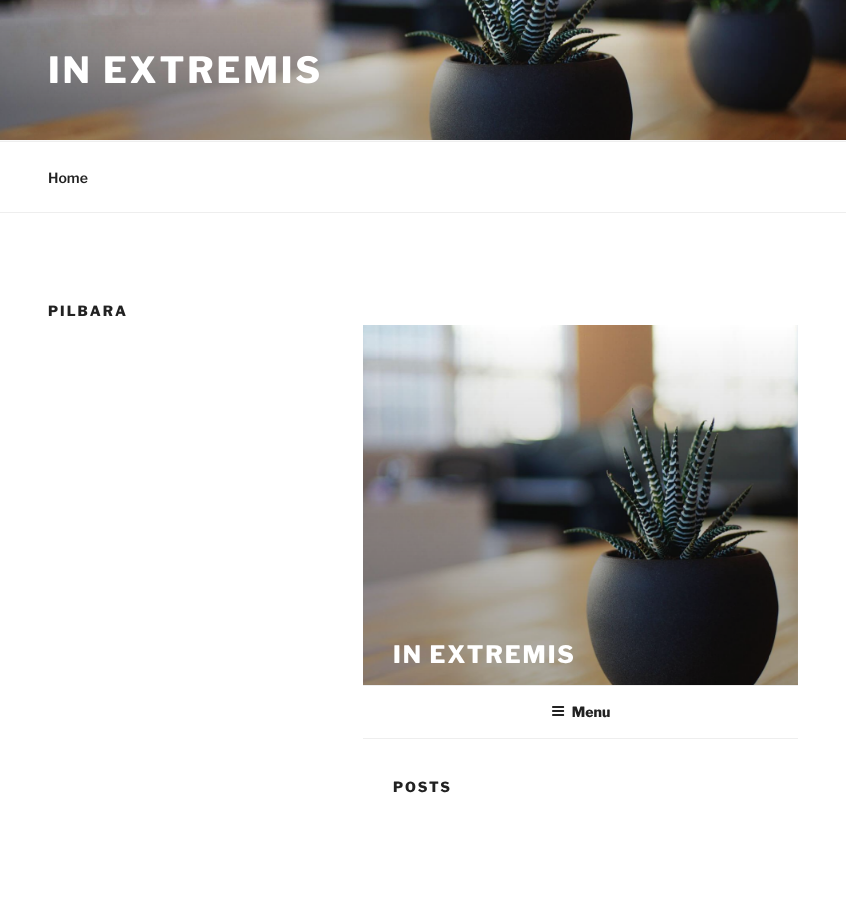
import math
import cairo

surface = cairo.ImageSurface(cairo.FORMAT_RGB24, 846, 903)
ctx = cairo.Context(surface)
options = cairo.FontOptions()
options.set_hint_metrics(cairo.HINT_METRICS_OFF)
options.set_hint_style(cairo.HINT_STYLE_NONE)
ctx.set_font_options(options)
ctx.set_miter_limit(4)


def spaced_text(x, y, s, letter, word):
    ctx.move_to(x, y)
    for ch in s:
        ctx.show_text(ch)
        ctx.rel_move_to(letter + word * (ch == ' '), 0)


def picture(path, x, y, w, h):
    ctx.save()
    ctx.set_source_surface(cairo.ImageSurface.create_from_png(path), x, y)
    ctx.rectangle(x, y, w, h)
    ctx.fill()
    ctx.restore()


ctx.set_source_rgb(1, 1, 1)
ctx.paint()
ctx.set_source_rgb(0.98, 0.98, 0.98)
ctx.rectangle(0, 140, 846, 1)
ctx.fill()
picture("img1.png", 0, 0, 846, 140)
ctx.select_font_face("Libre Franklin ExtraBold")
ctx.set_font_size(36)
ctx.set_source_rgb(1, 1, 1)
spaced_text(48, 83, "IN EXTREMIS", 2.9, 0)
ctx.set_source_rgb(0.933, 0.933, 0.933)
ctx.rectangle(0, 141, 846, 1)
ctx.fill()
ctx.rectangle(0, 212, 846, 1)
ctx.fill()
ctx.select_font_face("Libre Franklin SemiBold")
ctx.set_font_size(14)
ctx.set_source_rgb(0.133, 0.133, 0.133)
ctx.move_to(48, 183)
ctx.show_text("Home")
ctx.select_font_face("Libre Franklin ExtraBold")
spaced_text(48, 316, "PILBARA", 2, 0)
picture("img2.png", 363, 325, 435, 468)
surface.write_to_png("page.png")
